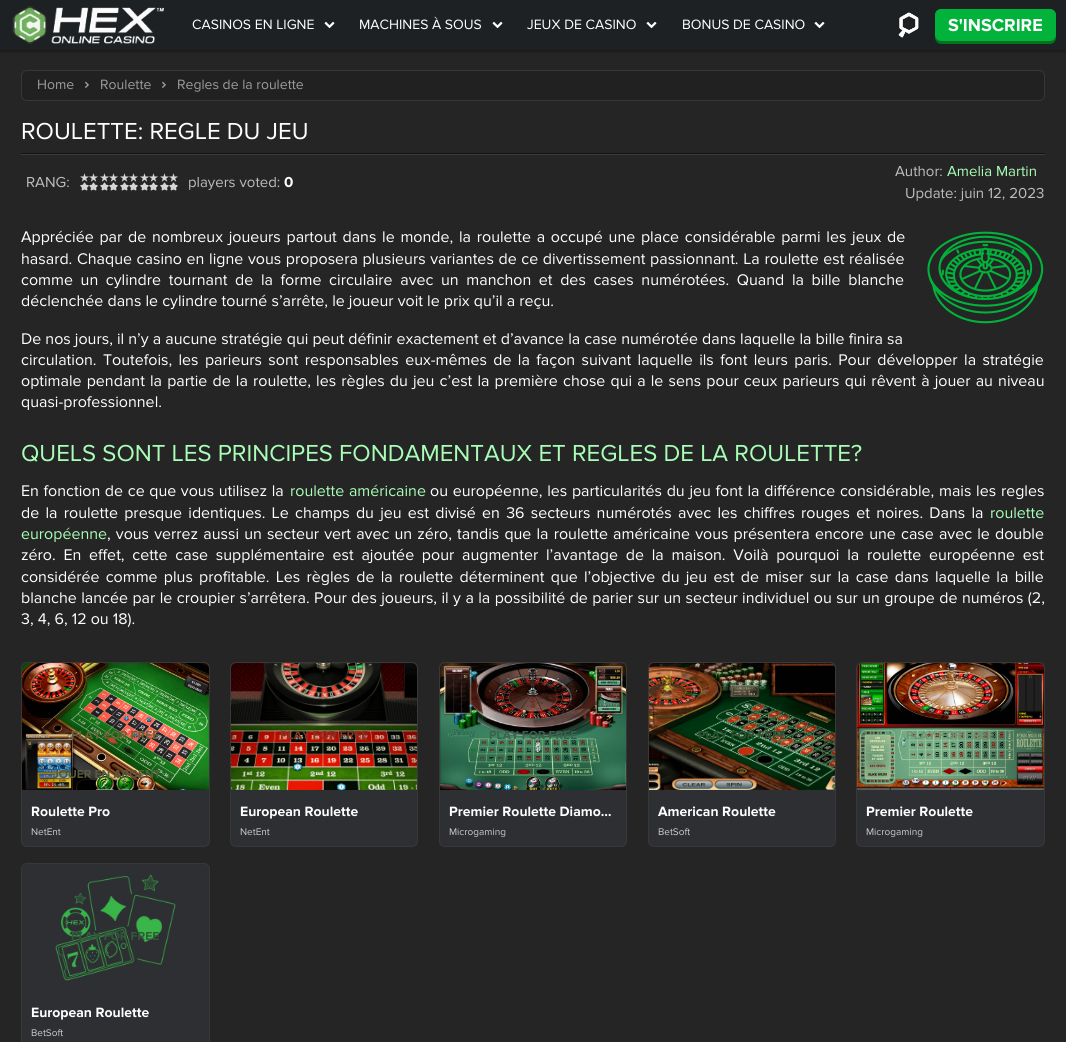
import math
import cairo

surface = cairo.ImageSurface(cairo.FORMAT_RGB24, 1066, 1042)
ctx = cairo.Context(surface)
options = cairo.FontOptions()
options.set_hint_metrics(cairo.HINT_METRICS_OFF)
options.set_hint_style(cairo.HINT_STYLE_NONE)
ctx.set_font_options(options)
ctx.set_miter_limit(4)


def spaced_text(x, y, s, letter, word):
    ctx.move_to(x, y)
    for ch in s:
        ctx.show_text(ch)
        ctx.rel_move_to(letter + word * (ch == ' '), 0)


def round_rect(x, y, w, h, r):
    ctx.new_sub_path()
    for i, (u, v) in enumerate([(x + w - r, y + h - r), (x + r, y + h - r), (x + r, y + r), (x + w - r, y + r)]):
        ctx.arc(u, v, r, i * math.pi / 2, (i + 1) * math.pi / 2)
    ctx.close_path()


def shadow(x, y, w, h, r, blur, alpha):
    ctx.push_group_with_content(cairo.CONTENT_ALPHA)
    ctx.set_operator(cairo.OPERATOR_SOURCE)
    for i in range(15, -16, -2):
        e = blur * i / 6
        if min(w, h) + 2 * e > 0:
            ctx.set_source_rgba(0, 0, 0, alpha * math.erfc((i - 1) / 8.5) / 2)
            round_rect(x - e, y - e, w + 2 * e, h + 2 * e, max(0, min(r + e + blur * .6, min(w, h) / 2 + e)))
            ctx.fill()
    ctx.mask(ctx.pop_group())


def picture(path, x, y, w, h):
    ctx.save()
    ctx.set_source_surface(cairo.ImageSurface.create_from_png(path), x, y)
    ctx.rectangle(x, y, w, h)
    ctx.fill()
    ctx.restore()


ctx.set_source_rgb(0.145, 0.145, 0.145)
ctx.paint()
ctx.set_source_rgb(0, 0, 0)
shadow(0, 2, 1066, 50, 0, 1, 0.3)
ctx.set_source_rgb(0.118, 0.129, 0.137)
ctx.rectangle(0, 0, 1066, 50)
ctx.fill()
picture("img1.png", 12, 6, 152, 38)
ctx.select_font_face("Proxima Nova")
ctx.set_font_size(14)
ctx.set_source_rgb(1, 1, 1)
ctx.move_to(192, 29)
ctx.show_text("CASINOS EN LIGNE")
picture("img2.png", 324, 21, 11, 8)
ctx.move_to(359, 29)
ctx.show_text("MACHINES À SOUS")
picture("img2.png", 492, 21, 11, 8)
ctx.move_to(527, 29)
ctx.show_text("JEUX DE CASINO")
picture("img2.png", 646, 21, 11, 8)
ctx.move_to(682, 29)
ctx.show_text("BONUS DE CASINO")
picture("img2.png", 814, 21, 11, 8)
picture("img3.png", 898, 12, 21, 26)
ctx.set_source_rgb(0, 0.455, 0.098)
ctx.new_path()
ctx.move_to(935, 35)
ctx.line_to(935, 38)
ctx.curve_to(935, 41, 938, 44, 941, 44)
ctx.line_to(1050, 44)
ctx.curve_to(1053, 44, 1056, 41, 1056, 38)
ctx.line_to(1056, 35)
ctx.curve_to(1056, 38, 1053, 41, 1050, 41)
ctx.line_to(941, 41)
ctx.curve_to(938, 41, 935, 38, 935, 35)
ctx.close_path()
ctx.fill()
ctx.set_source_rgb(0.004, 0.702, 0.231)
round_rect(935.5, 9.5, 120, 31, 5.5)
ctx.fill_preserve()
ctx.set_line_width(1)
ctx.stroke()
ctx.select_font_face("Proxima Nova", cairo.FONT_SLANT_NORMAL, cairo.FONT_WEIGHT_BOLD)
ctx.set_font_size(18)
ctx.set_source_rgb(1, 1, 1)
ctx.move_to(948, 31)
ctx.show_text("S'INSCRIRE")
ctx.set_source_rgb(0.129, 0.129, 0.129)
round_rect(21.5, 70.5, 1023, 30, 5.5)
ctx.fill_preserve()
ctx.set_source_rgb(0.216, 0.216, 0.216)
ctx.stroke()
ctx.select_font_face("Proxima Nova")
ctx.set_font_size(14)
ctx.set_source_rgb(0.612, 0.612, 0.612)
ctx.move_to(37, 89)
ctx.show_text("Home")
picture("img4.png", 85, 81, 4, 7)
ctx.move_to(100, 89)
ctx.show_text("Roulette")
picture("img5.png", 162, 81, 4, 7)
ctx.move_to(177, 89)
ctx.show_text("Regles de la roulette")
ctx.set_source_rgb(0.075, 0.075, 0.075)
ctx.rectangle(21, 153, 1024, 1)
ctx.fill()
ctx.set_font_size(24)
ctx.set_source_rgb(1, 1, 1)
ctx.move_to(21, 139)
ctx.show_text("ROULETTE: REGLE DU JEU")
ctx.set_source_rgb(0.231, 0.231, 0.231)
ctx.rectangle(21, 154, 1024, 1)
ctx.fill()
ctx.set_font_size(15)
ctx.set_source_rgb(0.741, 0.741, 0.741)
ctx.move_to(26, 187)
ctx.show_text("RANG:")
picture("img6.png", 80, 173, 18, 18)
picture("img6.png", 100, 173, 18, 18)
picture("img6.png", 120, 173, 18, 18)
picture("img6.png", 140, 173, 18, 18)
picture("img6.png", 160, 173, 18, 18)
ctx.move_to(188, 187)
ctx.show_text("players voted:")
ctx.select_font_face("Proxima Nova", cairo.FONT_SLANT_NORMAL, cairo.FONT_WEIGHT_BOLD)
ctx.set_source_rgb(1, 1, 1)
ctx.move_to(284, 187)
ctx.show_text("0")
ctx.select_font_face("Proxima Nova")
ctx.set_source_rgb(0.741, 0.741, 0.741)
ctx.move_to(895, 176)
ctx.show_text("Author:")
ctx.set_source_rgb(0.659, 0.996, 0.714)
ctx.move_to(947, 176)
ctx.show_text("Amelia Martin")
ctx.set_source_rgb(0.741, 0.741, 0.741)
ctx.move_to(905, 198)
ctx.show_text("Update: juin 12, 2023")
ctx.set_font_size(16)
ctx.set_source_rgb(1, 1, 1)
spaced_text(21, 242, "Appréciée par de nombreux joueurs partout dans le monde, la roulette a occupé une place considérable parmi les jeux de", 0, 1.6)
spaced_text(21, 264, "hasard. Chaque casino en ligne vous proposera plusieurs variantes de ce divertissement passionnant. La roulette est réalisée", 0, 0.5)
spaced_text(21, 285, "comme un cylindre tournant de la forme circulaire avec un manchon et des cases numérotées. Quand la bille blanche", 0, 3.5)
ctx.move_to(21, 306)
ctx.show_text("déclenchée dans le cylindre tourné s’arrête, le joueur voit le prix qu’il a reçu.")
picture("img7.png", 927, 231, 117, 93)
ctx.move_to(21, 344)
ctx.show_text("De nos jours, il n’y a aucune stratégie qui peut définir exactement et d’avance la case numérotée dans laquelle la bille finira sa")
spaced_text(21, 365, "circulation. Toutefois, les parieurs sont responsables eux-mêmes de la façon suivant laquelle ils font leurs paris. Pour développer la stratégie", 0, 2.25)
spaced_text(21, 386, "optimale pendant la partie de la roulette, les règles du jeu c’est la première chose qui a le sens pour ceux parieurs qui rêvent à jouer au niveau", 0, 1)
ctx.move_to(21, 407)
ctx.show_text("quasi-professionnel.")
ctx.set_font_size(24)
ctx.set_source_rgb(0.659, 0.996, 0.714)
ctx.move_to(21, 461)
ctx.show_text("QUELS SONT LES PRINCIPES FONDAMENTAUX ET REGLES DE LA ROULETTE?")
ctx.set_font_size(16)
ctx.set_source_rgb(1, 1, 1)
spaced_text(21, 496, "En fonction de ce que vous utilisez la", 0, 0.5)
ctx.set_source_rgb(0.659, 0.996, 0.714)
spaced_text(290, 496, "roulette américaine", 0, 0.5)
ctx.set_source_rgb(1, 1, 1)
spaced_text(430, 496, "ou européenne, les particularités du jeu font la différence considérable, mais les regles", 0, 0.6)
spaced_text(21, 518, "de la roulette presque identiques. Le champs du jeu est divisé en 36 secteurs numérotés avec les chiffres rouges et noires. Dans la", 0, 2.1)
ctx.set_source_rgb(0.659, 0.996, 0.714)
ctx.move_to(990, 518)
ctx.show_text("roulette")
ctx.move_to(21, 539)
ctx.show_text("européenne")
ctx.set_source_rgb(1, 1, 1)
spaced_text(107, 539, ", vous verrez aussi un secteur vert avec un zéro, tandis que la roulette américaine vous présentera encore une case avec le double", 0, 1)
spaced_text(21, 560, "zéro. En effet, cette case supplémentaire est ajoutée pour augmenter l’avantage de la maison. Voilà pourquoi la roulette européenne est", 0, 3.6)
spaced_text(21, 582, "considérée comme plus profitable. Les règles de la roulette déterminent que l’objective du jeu est de miser sur la case dans laquelle la bille", 0, 2.1)
spaced_text(21, 603, "blanche lancée par le croupier s’arrêtera. Pour des joueurs, il y a la possibilité de parier sur un secteur individuel ou sur un groupe de numéros (2,", 0, 0.3)
ctx.move_to(21, 624)
ctx.show_text("3, 4, 6, 12 ou 18).")
ctx.set_source_rgb(0.18, 0.184, 0.2)
round_rect(21.5, 662.5, 188, 184, 5.5)
ctx.fill_preserve()
ctx.set_source_rgb(0.22, 0.22, 0.231)
ctx.stroke()
picture("img8.png", 22, 663, 187, 127)
ctx.select_font_face("Proxima Nova", cairo.FONT_SLANT_NORMAL, cairo.FONT_WEIGHT_BOLD)
ctx.set_font_size(12)
ctx.set_source_rgb(0.42, 0.384, 0.224)
ctx.move_to(71, 739)
ctx.show_text("PLAY FOR FREE")
ctx.set_source_rgb(0.345, 0.353, 0.235)
ctx.move_to(53, 778)
ctx.show_text("JOUER EN ARGENT …")
ctx.set_font_size(14)
ctx.set_source_rgb(1, 1, 1)
ctx.move_to(31, 816)
ctx.show_text("Roulette Pro")
ctx.select_font_face("Proxima Nova")
ctx.set_font_size(10)
ctx.set_source_rgb(0.796, 0.796, 0.796)
ctx.move_to(31, 835)
ctx.show_text("NetEnt")
ctx.set_source_rgb(0.18, 0.184, 0.2)
round_rect(230.5, 662.5, 187, 184, 5.5)
ctx.fill_preserve()
ctx.set_source_rgb(0.22, 0.22, 0.231)
ctx.stroke()
picture("img9.png", 231, 663, 186, 127)
ctx.select_font_face("Proxima Nova", cairo.FONT_SLANT_NORMAL, cairo.FONT_WEIGHT_BOLD)
ctx.set_font_size(12)
ctx.set_source_rgb(0.525, 0.196, 0.149)
ctx.move_to(280, 739)
ctx.show_text("PLAY FOR FREE")
ctx.set_font_size(14)
ctx.set_source_rgb(1, 1, 1)
ctx.move_to(240, 816)
ctx.show_text("European Roulette")
ctx.select_font_face("Proxima Nova")
ctx.set_font_size(10)
ctx.set_source_rgb(0.796, 0.796, 0.796)
ctx.move_to(240, 835)
ctx.show_text("NetEnt")
ctx.set_source_rgb(0.18, 0.184, 0.2)
round_rect(439.5, 662.5, 187, 184, 5.5)
ctx.fill_preserve()
ctx.set_source_rgb(0.22, 0.22, 0.231)
ctx.stroke()
picture("img10.png", 440, 663, 186, 127)
ctx.select_font_face("Proxima Nova", cairo.FONT_SLANT_NORMAL, cairo.FONT_WEIGHT_BOLD)
ctx.set_font_size(12)
ctx.set_source_rgb(0.22, 0.392, 0.302)
ctx.move_to(489, 739)
ctx.show_text("PLAY FOR FREE")
ctx.set_font_size(14)
ctx.set_source_rgb(1, 1, 1)
ctx.move_to(449, 816)
ctx.show_text("Premier Roulette Diamo…")
ctx.select_font_face("Proxima Nova")
ctx.set_font_size(10)
ctx.set_source_rgb(0.796, 0.796, 0.796)
ctx.move_to(449, 835)
ctx.show_text("Microgaming")
ctx.set_source_rgb(0.18, 0.184, 0.2)
round_rect(648.5, 662.5, 187, 184, 5.5)
ctx.fill_preserve()
ctx.set_source_rgb(0.22, 0.22, 0.231)
ctx.stroke()
picture("img11.png", 649, 663, 186, 127)
ctx.select_font_face("Proxima Nova", cairo.FONT_SLANT_NORMAL, cairo.FONT_WEIGHT_BOLD)
ctx.set_font_size(12)
ctx.set_source_rgb(0.188, 0.318, 0.192)
ctx.move_to(698, 739)
ctx.show_text("PLAY FOR FREE")
ctx.set_font_size(14)
ctx.set_source_rgb(1, 1, 1)
ctx.move_to(658, 816)
ctx.show_text("American Roulette")
ctx.select_font_face("Proxima Nova")
ctx.set_font_size(10)
ctx.set_source_rgb(0.796, 0.796, 0.796)
ctx.move_to(658, 835)
ctx.show_text("BetSoft")
ctx.set_source_rgb(0.18, 0.184, 0.2)
round_rect(856.5, 662.5, 188, 184, 5.5)
ctx.fill_preserve()
ctx.set_source_rgb(0.22, 0.22, 0.231)
ctx.stroke()
picture("img12.png", 857, 663, 187, 127)
ctx.select_font_face("Proxima Nova", cairo.FONT_SLANT_NORMAL, cairo.FONT_WEIGHT_BOLD)
ctx.set_font_size(12)
ctx.set_source_rgb(0.439, 0.576, 0.447)
ctx.move_to(906, 739)
ctx.show_text("PLAY FOR FREE")
ctx.set_source_rgb(0.443, 0.604, 0.471)
ctx.move_to(999, 778)
ctx.show_text("…")
ctx.set_font_size(14)
ctx.set_source_rgb(1, 1, 1)
ctx.move_to(866, 816)
ctx.show_text("Premier Roulette")
ctx.select_font_face("Proxima Nova")
ctx.set_font_size(10)
ctx.set_source_rgb(0.796, 0.796, 0.796)
ctx.move_to(866, 835)
ctx.show_text("Microgaming")
ctx.set_source_rgb(0.18, 0.184, 0.2)
round_rect(21.5, 863.5, 188, 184, 5.5)
ctx.fill_preserve()
ctx.set_source_rgb(0.22, 0.22, 0.231)
ctx.stroke()
picture("img13.png", 55, 874, 121, 107)
ctx.select_font_face("Proxima Nova", cairo.FONT_SLANT_NORMAL, cairo.FONT_WEIGHT_BOLD)
ctx.set_font_size(12)
ctx.set_source_rgb(0.192, 0.349, 0.227)
ctx.move_to(71, 940)
ctx.show_text("PLAY FOR FREE")
ctx.set_font_size(14)
ctx.set_source_rgb(1, 1, 1)
ctx.move_to(31, 1017)
ctx.show_text("European Roulette")
ctx.select_font_face("Proxima Nova")
ctx.set_font_size(10)
ctx.set_source_rgb(0.796, 0.796, 0.796)
ctx.move_to(31, 1036)
ctx.show_text("BetSoft")
surface.write_to_png("page.png")
